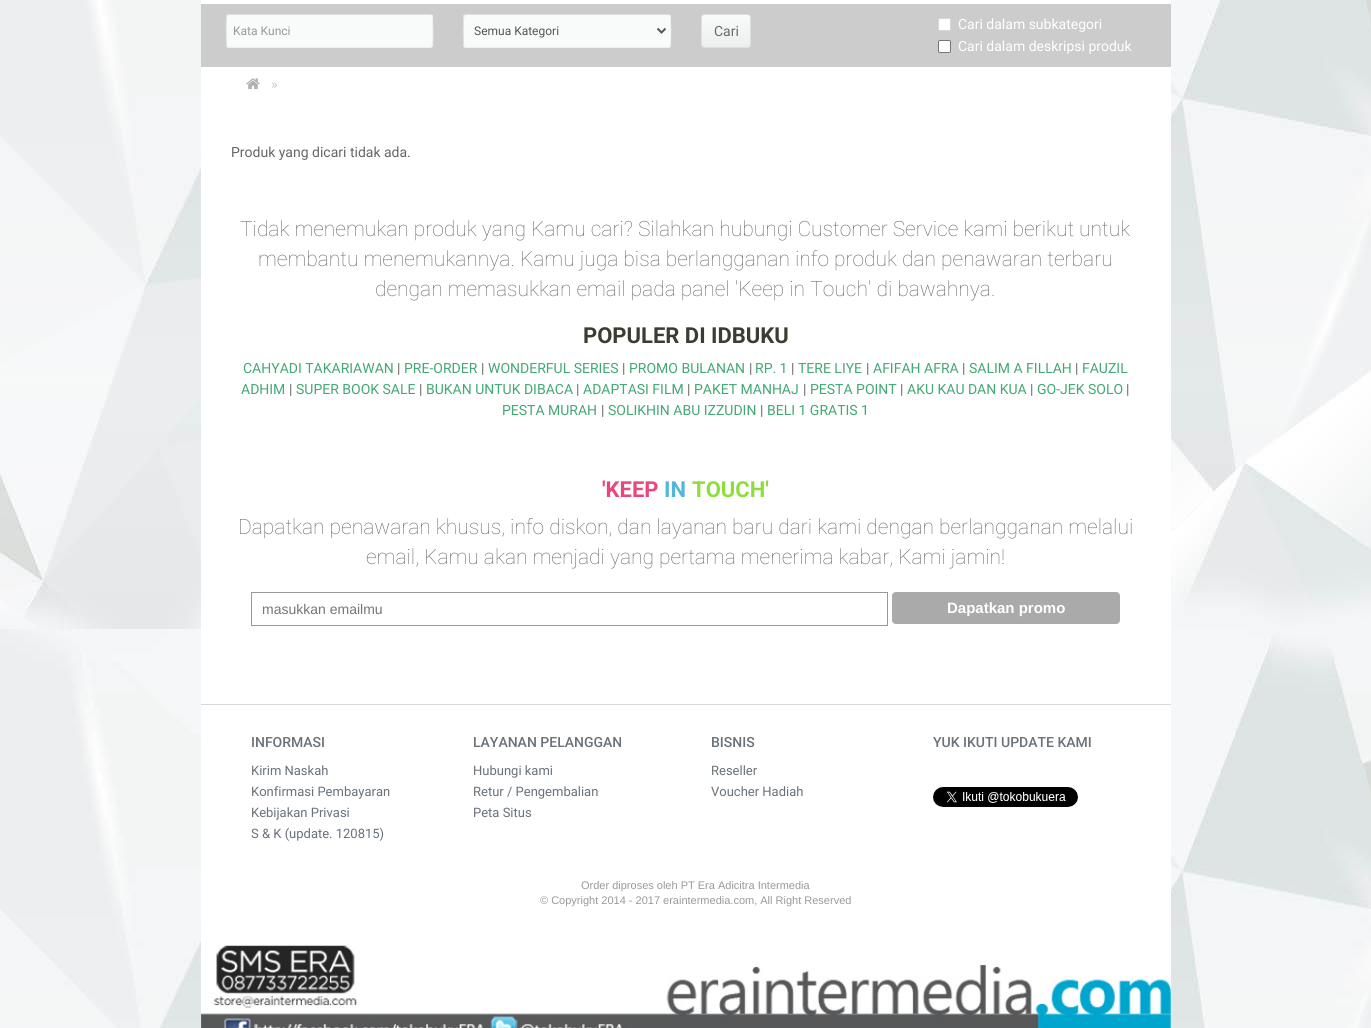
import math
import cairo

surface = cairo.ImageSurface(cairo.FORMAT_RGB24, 1371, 1028)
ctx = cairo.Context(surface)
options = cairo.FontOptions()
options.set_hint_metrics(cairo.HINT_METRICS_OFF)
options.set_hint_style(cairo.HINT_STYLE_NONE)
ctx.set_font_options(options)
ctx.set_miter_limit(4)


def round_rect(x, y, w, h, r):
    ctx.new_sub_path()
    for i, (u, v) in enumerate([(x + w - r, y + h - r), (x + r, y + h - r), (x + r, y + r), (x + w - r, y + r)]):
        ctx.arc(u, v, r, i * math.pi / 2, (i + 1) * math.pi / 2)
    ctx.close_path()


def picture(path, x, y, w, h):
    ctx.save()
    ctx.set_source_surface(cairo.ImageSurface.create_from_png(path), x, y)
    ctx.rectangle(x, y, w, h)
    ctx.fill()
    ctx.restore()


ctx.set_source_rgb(1, 1, 1)
ctx.paint()
picture("img1.png", 0, 0, 1371, 1028)
ctx.set_source_rgb(1, 1, 1)
ctx.rectangle(201, 0, 970, 945)
ctx.fill()
ctx.set_source_rgb(0.8, 0.8, 0.8)
ctx.rectangle(201, 4, 970, 63)
ctx.fill()
ctx.set_source_rgb(0.976, 0.98, 0.98)
round_rect(226, 14, 207, 34, 3)
ctx.fill()
ctx.new_path()
ctx.move_to(432, 15)
ctx.curve_to(433, 16.5, 433, 43.5, 432.5, 45.5)
ctx.curve_to(432, 46.5, 431, 47.5, 430, 47.5)
ctx.line_to(229, 47.5)
ctx.line_to(227, 47)
ctx.set_source_rgb(0.929, 0.937, 0.937)
ctx.set_line_width(1)
ctx.stroke()
ctx.new_path()
ctx.move_to(227, 47)
ctx.curve_to(226, 45.5, 226, 18.5, 226.5, 16.5)
ctx.curve_to(227, 15.5, 228, 14.5, 229, 14.5)
ctx.line_to(430, 14.5)
ctx.line_to(432, 15)
ctx.set_source_rgb(0.867, 0.875, 0.878)
ctx.stroke()
ctx.select_font_face("Roboto")
ctx.set_font_size(12)
ctx.set_source_rgb(0.6, 0.6, 0.6)
ctx.move_to(233, 35)
ctx.show_text("Kata Kunci")
ctx.set_source_rgb(0.976, 0.98, 0.98)
round_rect(463, 14, 208, 34, 3)
ctx.fill()
ctx.new_path()
ctx.move_to(670, 15)
ctx.curve_to(671, 16.5, 671, 44.5, 670, 46)
ctx.line_to(669, 47.5)
ctx.line_to(466, 47.5)
ctx.line_to(464, 47)
ctx.set_source_rgb(0.929, 0.937, 0.937)
ctx.stroke()
ctx.new_path()
ctx.move_to(464, 47)
ctx.curve_to(463, 45.5, 463, 17.5, 464, 16)
ctx.line_to(465, 14.5)
ctx.line_to(668, 14.5)
ctx.line_to(670, 15)
ctx.set_source_rgb(0.867, 0.875, 0.878)
ctx.stroke()
ctx.new_path()
ctx.move_to(657.5, 28.5)
ctx.line_to(661.5, 32.5)
ctx.line_to(665.5, 28.5)
ctx.set_source_rgb(0.333, 0.333, 0.333)
ctx.set_line_width(2)
ctx.stroke()
ctx.move_to(474, 35)
ctx.show_text("Semua Kategori")
ctx.save()
round_rect(701, 14, 50, 34, 4)
ctx.clip()
gradient = cairo.LinearGradient(726, 15, 726, 47)
gradient.add_color_stop_rgba(0, 0.976, 0.98, 0.98, 1)
gradient.add_color_stop_rgba(1, 0.929, 0.937, 0.937, 1)
ctx.set_source(gradient)
ctx.rectangle(701, 15, 50, 32)
ctx.fill()
ctx.restore()
round_rect(701.5, 14.5, 49, 33, 3.5)
ctx.set_source_rgb(0.867, 0.875, 0.878)
ctx.set_line_width(1)
ctx.stroke()
ctx.set_font_size(14)
ctx.set_source_rgb(0.392, 0.416, 0.435)
ctx.move_to(714, 36)
ctx.show_text("Cari")
ctx.set_source_rgb(1, 1, 1)
round_rect(938, 18, 13, 13, 2)
ctx.fill()
round_rect(938.5, 18.5, 12, 12, 1.5)
ctx.set_source_rgba(0.463, 0.463, 0.463, 0.3)
ctx.stroke()
ctx.set_source_rgb(1, 1, 1)
ctx.move_to(958, 29)
ctx.show_text("Cari dalam subkategori")
round_rect(938.5, 40.5, 12, 12, 1.5)
ctx.fill_preserve()
ctx.set_source_rgb(0.463, 0.463, 0.463)
ctx.stroke()
ctx.set_source_rgb(1, 1, 1)
ctx.move_to(958, 51)
ctx.show_text("Cari dalam deskripsi produk")
picture("img2.png", 246, 78, 14, 11)
ctx.set_source_rgb(0.8, 0.8, 0.8)
ctx.move_to(271, 89)
ctx.show_text("»")
ctx.set_source_rgb(0.4, 0.4, 0.4)
ctx.move_to(231, 157)
ctx.show_text("Produk yang dicari tidak ada.")
ctx.select_font_face("Roboto Thin")
ctx.set_font_size(21)
ctx.move_to(240, 236)
ctx.show_text("Tidak menemukan produk yang Kamu cari? Silahkan hubungi Customer Service kami berikut untuk")
ctx.move_to(258, 266)
ctx.show_text("membantu menemukannya. Kamu juga bisa berlangganan info produk dan penawaran terbaru")
ctx.move_to(375, 296)
ctx.show_text("dengan memasukkan email pada panel 'Keep in Touch' di bawahnya.")
ctx.select_font_face("Roboto", cairo.FONT_SLANT_NORMAL, cairo.FONT_WEIGHT_BOLD)
ctx.set_font_size(22)
ctx.set_source_rgb(0.235, 0.239, 0.192)
ctx.move_to(583, 343)
ctx.show_text("POPULER DI IDBUKU")
ctx.select_font_face("Roboto")
ctx.set_font_size(14)
ctx.set_source_rgb(0.259, 0.659, 0.455)
ctx.move_to(243, 373)
ctx.show_text("CAHYADI TAKARIAWAN")
ctx.set_source_rgb(0.4, 0.4, 0.4)
ctx.move_to(397, 373)
ctx.show_text("|")
ctx.set_source_rgb(0.259, 0.659, 0.455)
ctx.move_to(404, 373)
ctx.show_text("PRE-ORDER")
ctx.set_source_rgb(0.4, 0.4, 0.4)
ctx.move_to(481, 373)
ctx.show_text("|")
ctx.set_source_rgb(0.259, 0.659, 0.455)
ctx.move_to(488, 373)
ctx.show_text("WONDERFUL SERIES")
ctx.set_source_rgb(0.4, 0.4, 0.4)
ctx.move_to(622, 373)
ctx.show_text("|")
ctx.set_source_rgb(0.259, 0.659, 0.455)
ctx.move_to(629, 373)
ctx.show_text("PROMO BULANAN")
ctx.set_source_rgb(0.4, 0.4, 0.4)
ctx.move_to(749, 373)
ctx.show_text("|")
ctx.set_source_rgb(0.259, 0.659, 0.455)
ctx.move_to(755, 373)
ctx.show_text("RP. 1")
ctx.set_source_rgb(0.4, 0.4, 0.4)
ctx.move_to(791, 373)
ctx.show_text("|")
ctx.set_source_rgb(0.259, 0.659, 0.455)
ctx.move_to(798, 373)
ctx.show_text("TERE LIYE")
ctx.set_source_rgb(0.4, 0.4, 0.4)
ctx.move_to(866, 373)
ctx.show_text("|")
ctx.set_source_rgb(0.259, 0.659, 0.455)
ctx.move_to(873, 373)
ctx.show_text("AFIFAH AFRA")
ctx.set_source_rgb(0.4, 0.4, 0.4)
ctx.move_to(962, 373)
ctx.show_text("|")
ctx.set_source_rgb(0.259, 0.659, 0.455)
ctx.move_to(969, 373)
ctx.show_text("SALIM A FILLAH")
ctx.set_source_rgb(0.4, 0.4, 0.4)
ctx.move_to(1075, 373)
ctx.show_text("|")
ctx.set_source_rgb(0.259, 0.659, 0.455)
ctx.move_to(1082, 373)
ctx.show_text("FAUZIL")
ctx.move_to(241, 394)
ctx.show_text("ADHIM")
ctx.set_source_rgb(0.4, 0.4, 0.4)
ctx.move_to(289, 394)
ctx.show_text("|")
ctx.set_source_rgb(0.259, 0.659, 0.455)
ctx.move_to(296, 394)
ctx.show_text("SUPER BOOK SALE")
ctx.set_source_rgb(0.4, 0.4, 0.4)
ctx.move_to(419, 394)
ctx.show_text("|")
ctx.set_source_rgb(0.259, 0.659, 0.455)
ctx.move_to(426, 394)
ctx.show_text("BUKAN UNTUK DIBACA")
ctx.set_source_rgb(0.4, 0.4, 0.4)
ctx.move_to(576, 394)
ctx.show_text("|")
ctx.set_source_rgb(0.259, 0.659, 0.455)
ctx.move_to(583, 394)
ctx.show_text("ADAPTASI FILM")
ctx.set_source_rgb(0.4, 0.4, 0.4)
ctx.move_to(687, 394)
ctx.show_text("|")
ctx.set_source_rgb(0.259, 0.659, 0.455)
ctx.move_to(694, 394)
ctx.show_text("PAKET MANHAJ")
ctx.set_source_rgb(0.4, 0.4, 0.4)
ctx.move_to(803, 394)
ctx.show_text("|")
ctx.set_source_rgb(0.259, 0.659, 0.455)
ctx.move_to(810, 394)
ctx.show_text("PESTA POINT")
ctx.set_source_rgb(0.4, 0.4, 0.4)
ctx.move_to(900, 394)
ctx.show_text("|")
ctx.set_source_rgb(0.259, 0.659, 0.455)
ctx.move_to(907, 394)
ctx.show_text("AKU KAU DAN KUA")
ctx.set_source_rgb(0.4, 0.4, 0.4)
ctx.move_to(1030, 394)
ctx.show_text("|")
ctx.set_source_rgb(0.259, 0.659, 0.455)
ctx.move_to(1037, 394)
ctx.show_text("GO-JEK SOLO")
ctx.set_source_rgb(0.4, 0.4, 0.4)
ctx.move_to(1126, 394)
ctx.show_text("|")
ctx.set_source_rgb(0.259, 0.659, 0.455)
ctx.move_to(502, 415)
ctx.show_text("PESTA MURAH")
ctx.set_source_rgb(0.4, 0.4, 0.4)
ctx.move_to(601, 415)
ctx.show_text("|")
ctx.set_source_rgb(0.259, 0.659, 0.455)
ctx.move_to(608, 415)
ctx.show_text("SOLIKHIN ABU IZZUDIN")
ctx.set_source_rgb(0.4, 0.4, 0.4)
ctx.move_to(760, 415)
ctx.show_text("|")
ctx.set_source_rgb(0.259, 0.659, 0.455)
ctx.move_to(767, 415)
ctx.show_text("BELI 1 GRATIS 1")
ctx.select_font_face("Roboto", cairo.FONT_SLANT_NORMAL, cairo.FONT_WEIGHT_BOLD)
ctx.set_font_size(22)
ctx.set_source_rgb(0.914, 0.271, 0.494)
ctx.move_to(602, 497)
ctx.show_text("'KEEP")
ctx.set_source_rgb(0.322, 0.714, 0.863)
ctx.move_to(664, 497)
ctx.show_text("IN")
ctx.set_source_rgb(0.557, 0.867, 0.243)
ctx.move_to(692, 497)
ctx.show_text("TOUCH'")
ctx.select_font_face("Roboto Thin")
ctx.set_font_size(21)
ctx.set_source_rgb(0.4, 0.4, 0.4)
ctx.move_to(238, 534)
ctx.show_text("Dapatkan penawaran khusus, info diskon, dan layanan baru dari kami dengan berlangganan melalui")
ctx.move_to(366, 564)
ctx.show_text("email, Kamu akan menjadi yang pertama menerima kabar, Kami jamin!")
ctx.rectangle(251.5, 592.5, 636, 33)
ctx.set_source_rgb(0.6, 0.6, 0.6)
ctx.stroke()
ctx.select_font_face("Liberation Sans")
ctx.set_font_size(14)
ctx.set_source_rgb(0.459, 0.459, 0.459)
ctx.move_to(262, 614)
ctx.show_text("masukkan emailmu")
ctx.set_source_rgb(0.667, 0.667, 0.667)
round_rect(892, 592, 228, 32, 4)
ctx.fill()
ctx.select_font_face("Liberation Sans", cairo.FONT_SLANT_NORMAL, cairo.FONT_WEIGHT_BOLD)
ctx.set_font_size(15)
ctx.set_source_rgb(1, 1, 1)
ctx.move_to(947, 613)
ctx.show_text("Dapatkan promo")
ctx.set_source_rgb(0.847, 0.847, 0.847)
ctx.rectangle(201, 704, 970, 1)
ctx.fill()
ctx.select_font_face("Roboto Medium")
ctx.set_font_size(14)
ctx.set_source_rgb(0.412, 0.443, 0.475)
ctx.move_to(251, 747)
ctx.show_text("INFORMASI")
ctx.select_font_face("Roboto")
ctx.set_font_size(13)
ctx.move_to(251, 775)
ctx.show_text("Kirim Naskah")
ctx.move_to(251, 796)
ctx.show_text("Konfirmasi Pembayaran")
ctx.move_to(251, 817)
ctx.show_text("Kebijakan Privasi")
ctx.move_to(251, 838)
ctx.show_text("S & K (update. 120815)")
ctx.select_font_face("Roboto Medium")
ctx.set_font_size(14)
ctx.move_to(473, 747)
ctx.show_text("LAYANAN PELANGGAN")
ctx.select_font_face("Roboto")
ctx.set_font_size(13)
ctx.move_to(473, 775)
ctx.show_text("Hubungi kami")
ctx.move_to(473, 796)
ctx.show_text("Retur / Pengembalian")
ctx.move_to(473, 817)
ctx.show_text("Peta Situs")
ctx.select_font_face("Roboto Medium")
ctx.set_font_size(14)
ctx.move_to(711, 747)
ctx.show_text("BISNIS")
ctx.select_font_face("Roboto")
ctx.set_font_size(13)
ctx.move_to(711, 775)
ctx.show_text("Reseller")
ctx.move_to(711, 796)
ctx.show_text("Voucher Hadiah")
ctx.select_font_face("Roboto Medium")
ctx.set_font_size(14)
ctx.move_to(933, 747)
ctx.show_text("YUK IKUTI UPDATE KAMI")
picture("img3.png", 933, 787, 145, 20)
ctx.select_font_face("Liberation Sans")
ctx.set_font_size(11)
ctx.set_source_rgb(0.6, 0.6, 0.6)
ctx.move_to(581, 889)
ctx.show_text("Order diproses oleh PT Era Adicitra Intermedia")
ctx.move_to(540, 904)
ctx.show_text("© Copyright 2014 - 2017 eraintermedia.com, All Right Reserved")
picture("img4.png", 201, 945, 970, 83)
surface.write_to_png("page.png")
